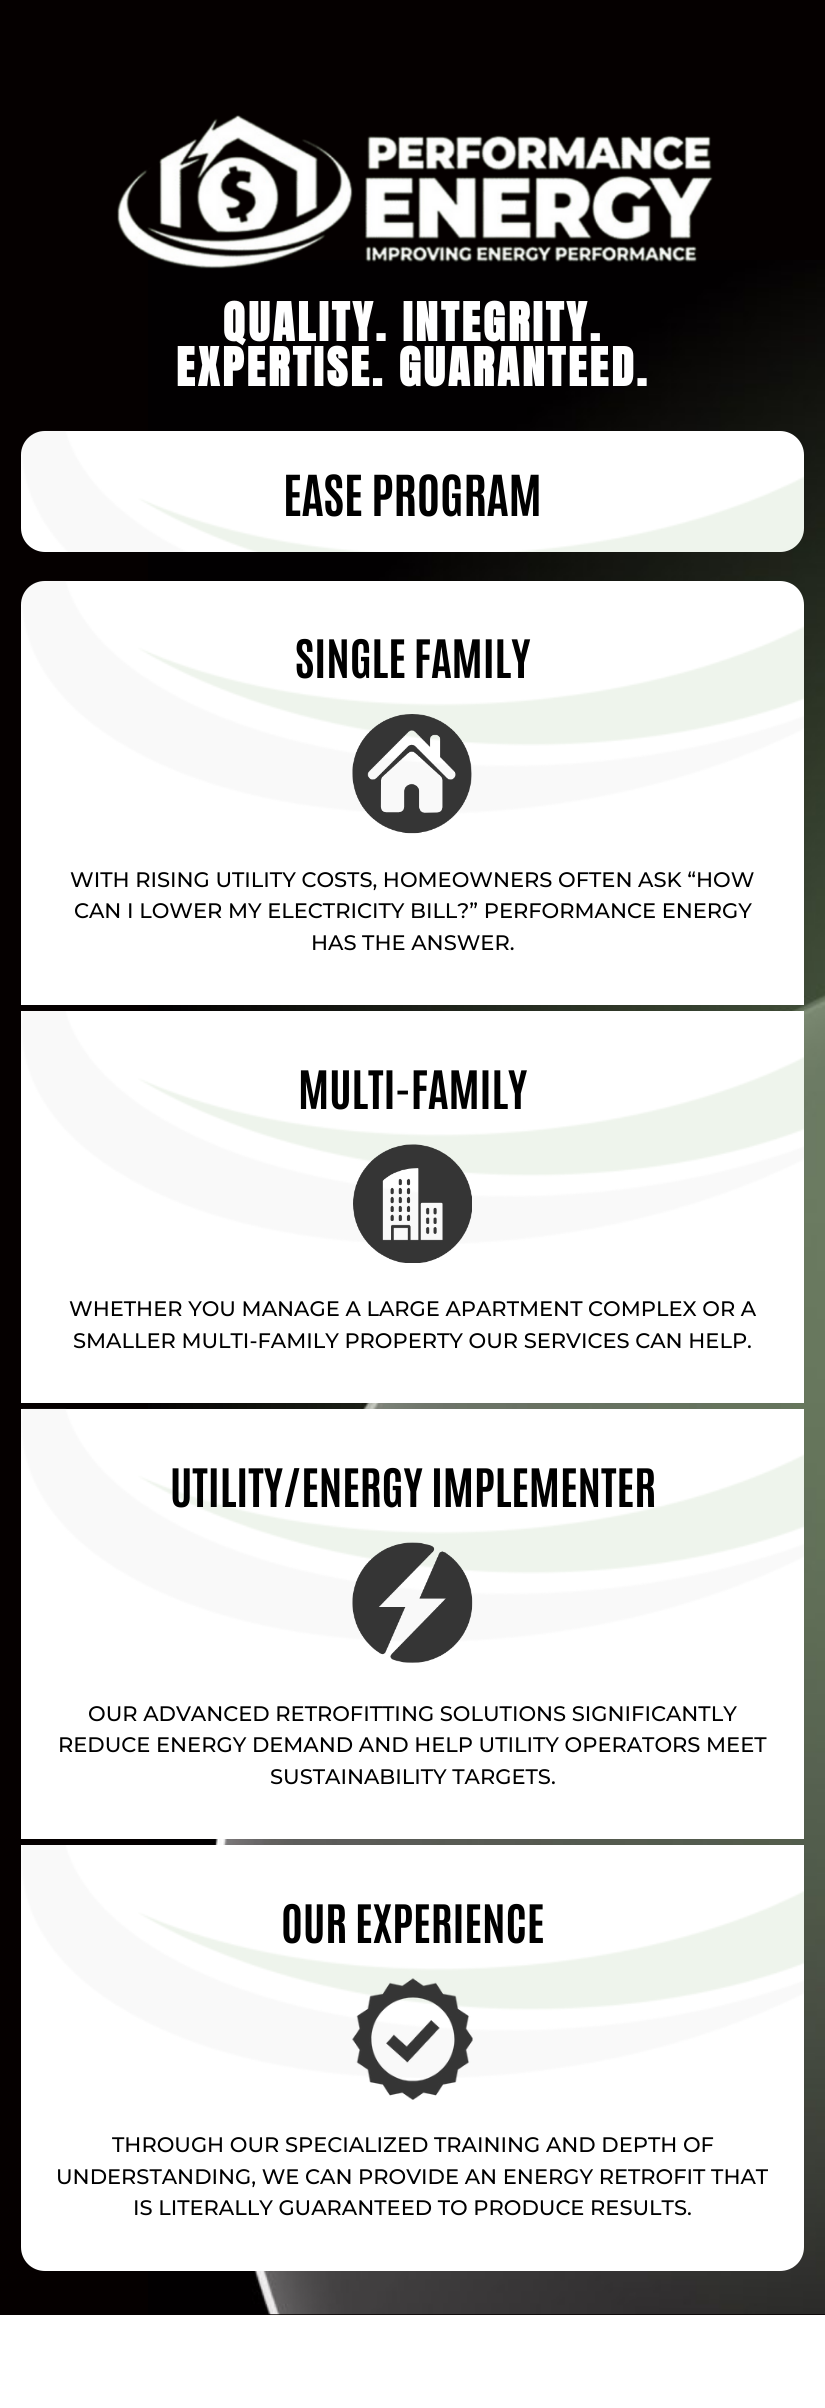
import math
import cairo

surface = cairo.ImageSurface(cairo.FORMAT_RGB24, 825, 2408)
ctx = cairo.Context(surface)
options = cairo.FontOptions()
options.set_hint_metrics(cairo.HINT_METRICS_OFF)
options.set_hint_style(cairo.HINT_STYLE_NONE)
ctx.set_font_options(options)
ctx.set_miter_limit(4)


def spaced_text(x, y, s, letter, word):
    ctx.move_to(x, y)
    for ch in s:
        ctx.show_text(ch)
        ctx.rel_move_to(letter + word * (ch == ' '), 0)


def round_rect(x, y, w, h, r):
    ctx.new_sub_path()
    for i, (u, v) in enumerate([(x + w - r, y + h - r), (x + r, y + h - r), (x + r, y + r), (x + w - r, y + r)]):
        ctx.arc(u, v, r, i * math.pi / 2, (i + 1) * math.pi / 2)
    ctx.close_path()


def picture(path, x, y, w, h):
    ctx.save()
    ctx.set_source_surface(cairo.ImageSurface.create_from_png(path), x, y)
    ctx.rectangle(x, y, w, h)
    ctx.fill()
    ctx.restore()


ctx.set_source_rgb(1, 1, 1)
ctx.paint()
ctx.set_source_rgb(0.02, 0, 0)
ctx.rectangle(0, 0, 825, 2315)
ctx.fill()
picture("img1.png", 148, 260, 677, 2055)
picture("img2.png", 117, 115, 596, 154)
ctx.select_font_face("Anton", cairo.FONT_SLANT_NORMAL, cairo.FONT_WEIGHT_BOLD)
ctx.set_font_size(45)
ctx.set_source_rgb(1, 1, 1)
spaced_text(223, 341, "QUALITY. INTEGRITY.", 3, 0)
spaced_text(176, 386, "EXPERTISE. GUARANTEED.", 3, 0)
round_rect(21, 431, 783, 121, 24)
ctx.fill()
picture("img3.png", 21, 430, 783, 122)
ctx.select_font_face("Antonio", cairo.FONT_SLANT_NORMAL, cairo.FONT_WEIGHT_BOLD)
ctx.set_font_size(48)
ctx.set_source_rgb(0, 0, 0)
ctx.move_to(283, 516)
ctx.show_text("EASE PROGRAM")
ctx.set_source_rgb(1, 1, 1)
ctx.new_path()
ctx.move_to(45, 581)
ctx.line_to(780, 581)
ctx.curve_to(793.5, 581, 804, 591.5, 804, 605)
ctx.line_to(804, 1005)
ctx.line_to(21, 1005)
ctx.line_to(21, 605)
ctx.curve_to(21, 591.5, 31.5, 581, 45, 581)
ctx.close_path()
ctx.fill()
picture("img4.png", 21, 580, 783, 234)
ctx.set_font_size(45)
ctx.set_source_rgb(0, 0, 0)
ctx.move_to(295, 678)
ctx.show_text("SINGLE FAMILY")
picture("img5.png", 352, 714, 120, 120)
ctx.select_font_face("Montserrat Medium")
ctx.set_font_size(21)
ctx.move_to(70, 887)
ctx.show_text("WITH RISING UTILITY COSTS, HOMEOWNERS OFTEN ASK “HOW")
ctx.move_to(74, 918)
ctx.show_text("CAN I LOWER MY ELECTRICITY BILL?” PERFORMANCE ENERGY")
ctx.move_to(311, 950)
ctx.show_text("HAS THE ANSWER.")
ctx.set_source_rgb(1, 1, 1)
ctx.rectangle(21, 1011, 783, 392)
ctx.fill()
picture("img6.png", 21, 1011, 783, 233)
ctx.select_font_face("Antonio", cairo.FONT_SLANT_NORMAL, cairo.FONT_WEIGHT_BOLD)
ctx.set_font_size(45)
ctx.set_source_rgb(0, 0, 0)
ctx.move_to(298, 1109)
ctx.show_text("MULTI-FAMILY")
picture("img7.png", 353, 1144, 119, 119)
ctx.select_font_face("Montserrat Medium")
ctx.set_font_size(21)
ctx.move_to(69, 1316)
ctx.show_text("WHETHER YOU MANAGE A LARGE APARTMENT COMPLEX OR A")
ctx.move_to(73, 1348)
ctx.show_text("SMALLER MULTI-FAMILY PROPERTY OUR SERVICES CAN HELP.")
ctx.set_source_rgb(1, 1, 1)
ctx.rectangle(21, 1409, 783, 430)
ctx.fill()
picture("img8.png", 21, 1408, 783, 234)
ctx.select_font_face("Antonio", cairo.FONT_SLANT_NORMAL, cairo.FONT_WEIGHT_BOLD)
ctx.set_font_size(45)
ctx.set_source_rgb(0, 0, 0)
ctx.move_to(170, 1507)
ctx.show_text("UTILITY/ENERGY IMPLEMENTER")
picture("img9.png", 352, 1542, 121, 121)
ctx.select_font_face("Montserrat Medium")
ctx.set_font_size(21)
ctx.move_to(88, 1721)
ctx.show_text("OUR ADVANCED RETROFITTING SOLUTIONS SIGNIFICANTLY")
ctx.move_to(58, 1752)
ctx.show_text("REDUCE ENERGY DEMAND AND HELP UTILITY OPERATORS MEET")
ctx.move_to(270, 1784)
ctx.show_text("SUSTAINABILITY TARGETS.")
ctx.set_source_rgb(1, 1, 1)
ctx.new_path()
ctx.move_to(21, 1845)
ctx.line_to(804, 1845)
ctx.line_to(804, 2247)
ctx.curve_to(804, 2260.5, 793.5, 2271, 780, 2271)
ctx.line_to(45, 2271)
ctx.curve_to(31.5, 2271, 21, 2260.5, 21, 2247)
ctx.close_path()
ctx.fill()
picture("img6.png", 21, 1845, 783, 233)
ctx.select_font_face("Antonio", cairo.FONT_SLANT_NORMAL, cairo.FONT_WEIGHT_BOLD)
ctx.set_font_size(45)
ctx.set_source_rgb(0, 0, 0)
ctx.move_to(281, 1943)
ctx.show_text("OUR EXPERIENCE")
picture("img10.png", 352, 1978, 121, 122)
ctx.select_font_face("Montserrat Medium")
ctx.set_font_size(21)
ctx.move_to(112, 2152)
ctx.show_text("THROUGH OUR SPECIALIZED TRAINING AND DEPTH OF")
ctx.move_to(56, 2184)
ctx.show_text("UNDERSTANDING, WE CAN PROVIDE AN ENERGY RETROFIT THAT")
ctx.move_to(133, 2215)
ctx.show_text("IS LITERALLY GUARANTEED TO PRODUCE RESULTS.")
surface.write_to_png("page.png")
